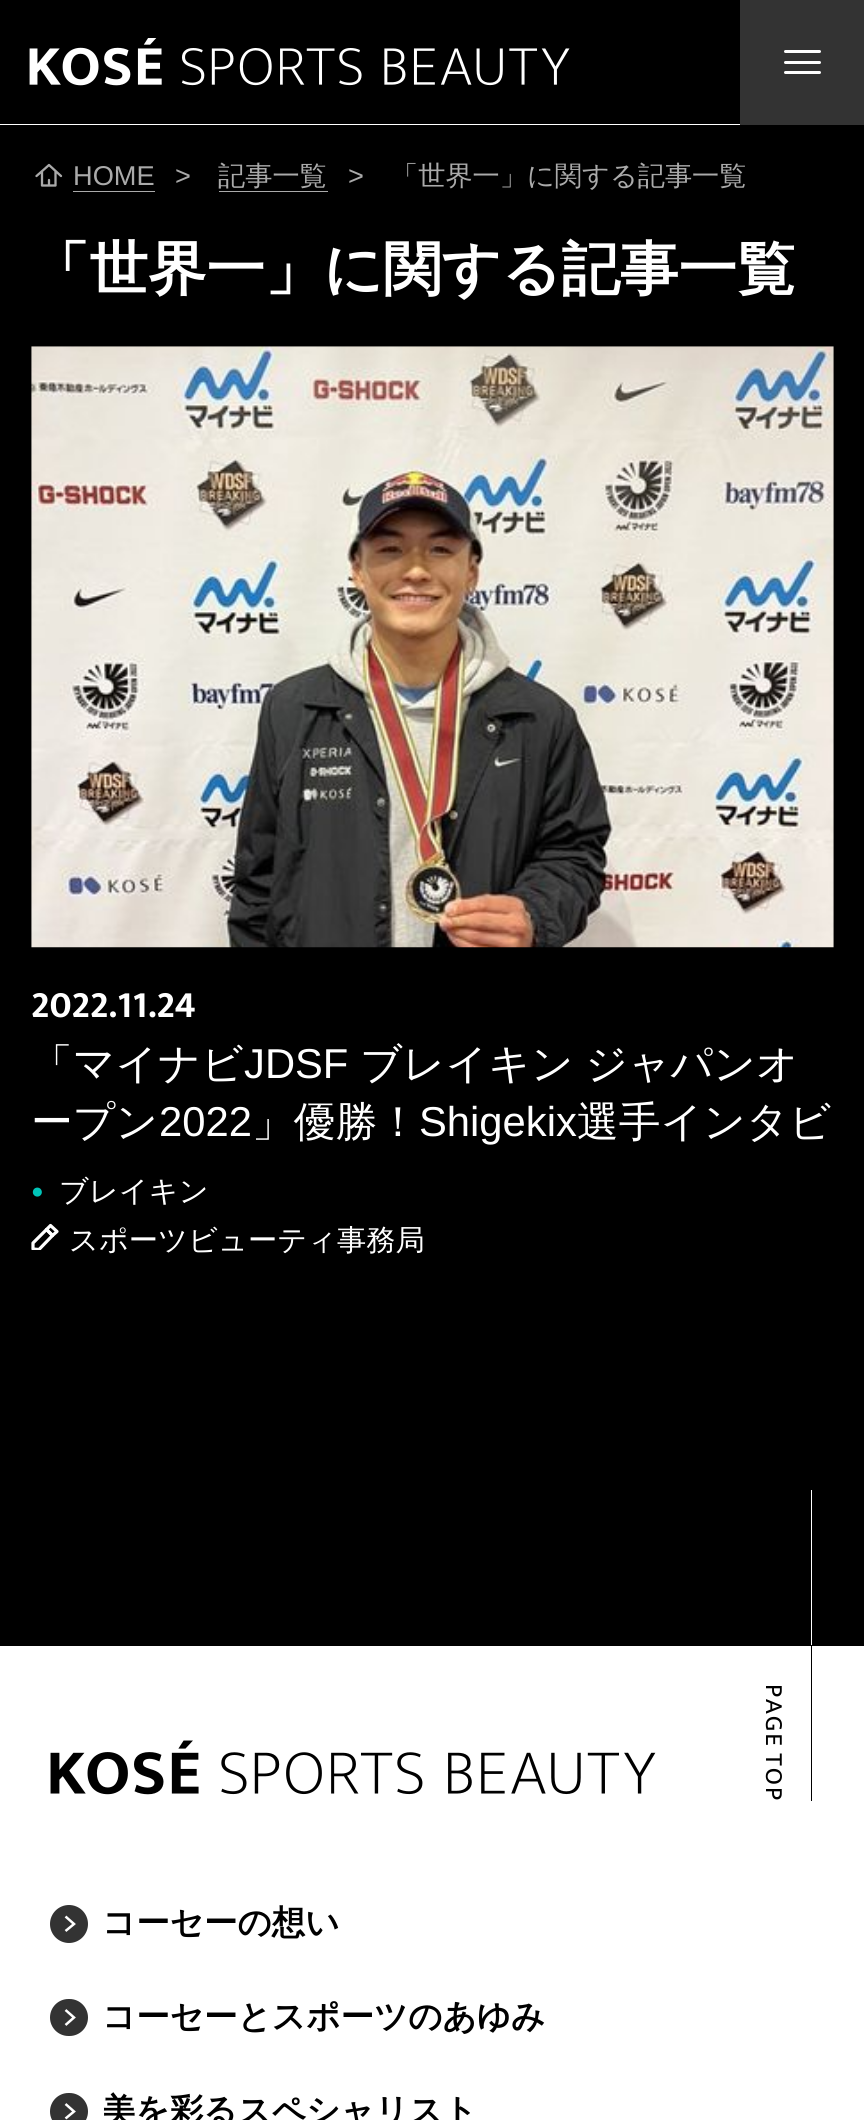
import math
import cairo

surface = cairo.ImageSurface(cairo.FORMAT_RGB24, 864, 2120)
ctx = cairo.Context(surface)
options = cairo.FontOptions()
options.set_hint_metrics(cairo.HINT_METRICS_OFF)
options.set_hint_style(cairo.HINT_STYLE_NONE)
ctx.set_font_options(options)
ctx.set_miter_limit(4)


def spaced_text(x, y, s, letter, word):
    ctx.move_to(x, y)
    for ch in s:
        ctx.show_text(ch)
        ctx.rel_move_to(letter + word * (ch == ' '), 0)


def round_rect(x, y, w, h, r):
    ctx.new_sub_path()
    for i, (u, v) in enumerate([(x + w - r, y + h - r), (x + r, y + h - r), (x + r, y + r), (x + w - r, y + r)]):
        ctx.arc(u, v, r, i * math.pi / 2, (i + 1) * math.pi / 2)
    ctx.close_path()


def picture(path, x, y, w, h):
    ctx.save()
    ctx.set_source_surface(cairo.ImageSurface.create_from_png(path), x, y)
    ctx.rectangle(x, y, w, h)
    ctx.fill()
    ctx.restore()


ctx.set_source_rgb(0, 0, 0)
ctx.paint()
ctx.set_source_rgb(1, 1, 1)
ctx.rectangle(0, 124, 740, 1)
ctx.fill()
picture("img1.png", 29, 38, 541, 48)
ctx.set_source_rgb(0.2, 0.2, 0.2)
ctx.rectangle(740, 0, 124, 125)
ctx.fill()
ctx.set_source_rgb(1, 1, 1)
round_rect(784, 50, 37, 3, 1.5)
ctx.fill()
round_rect(784, 61, 37, 3, 1.5)
ctx.fill()
round_rect(784, 71, 37, 3, 1.5)
ctx.fill()
ctx.new_path()
ctx.move_to(61, 176)
ctx.line_to(49, 165)
ctx.line_to(36.5, 176)
ctx.move_to(55.5, 171.5)
ctx.line_to(55.5, 185.5)
ctx.line_to(42, 185.5)
ctx.line_to(42, 171.5)
ctx.set_source_rgb(0.667, 0.667, 0.667)
ctx.set_line_width(2.3)
ctx.set_line_cap(cairo.LINE_CAP_ROUND)
ctx.set_line_join(cairo.LINE_JOIN_ROUND)
ctx.stroke()
ctx.new_path()
ctx.move_to(49, 180)
ctx.line_to(49, 184.5)
ctx.set_line_join(cairo.LINE_JOIN_MITER)
ctx.stroke()
ctx.select_font_face("Liberation Sans")
ctx.set_font_size(27.2)
ctx.move_to(73, 185)
ctx.show_text("HOME")
ctx.rectangle(73, 191, 82, 1)
ctx.fill()
ctx.move_to(175, 185)
ctx.show_text(">")
ctx.select_font_face("WenQuanYi Zen Hei Medium")
ctx.move_to(218, 185)
ctx.show_text("記事一覧")
ctx.rectangle(219, 191, 109, 1)
ctx.fill()
ctx.select_font_face("Liberation Sans")
ctx.move_to(348, 185)
ctx.show_text(">")
ctx.select_font_face("WenQuanYi Zen Hei Medium")
ctx.move_to(391, 185)
ctx.show_text("「世界一」に関する記事一覧")
ctx.select_font_face("WenQuanYi Zen Hei", cairo.FONT_SLANT_NORMAL, cairo.FONT_WEIGHT_BOLD)
ctx.set_font_size(58.5)
ctx.set_source_rgb(1, 1, 1)
ctx.move_to(31, 289)
ctx.show_text("「世界一」に関する記事一覧")
picture("img2.png", 31, 346, 803, 602)
ctx.select_font_face("Mukta", cairo.FONT_SLANT_NORMAL, cairo.FONT_WEIGHT_BOLD)
ctx.set_font_size(37.5)
ctx.move_to(31, 1017)
ctx.show_text("2022.11.24")
ctx.select_font_face("WenQuanYi Zen Hei Medium")
ctx.set_font_size(41.75)
ctx.move_to(31, 1078)
ctx.show_text("「マイナビ")
ctx.select_font_face("Liberation Sans")
ctx.move_to(244, 1078)
ctx.show_text("JDSF")
ctx.select_font_face("WenQuanYi Zen Hei Medium")
spaced_text(360, 1078, "ブレイキン ジャパンオ", 0, -1)
ctx.move_to(31, 1136)
ctx.show_text("ープン")
ctx.select_font_face("Liberation Sans")
ctx.move_to(159, 1136)
ctx.show_text("2022")
ctx.select_font_face("WenQuanYi Zen Hei Medium")
ctx.move_to(252, 1136)
ctx.show_text("」優勝！")
ctx.select_font_face("Liberation Sans")
ctx.move_to(419, 1136)
ctx.show_text("Shigekix")
ctx.select_font_face("WenQuanYi Zen Hei Medium")
ctx.move_to(577, 1136)
ctx.show_text("選手インタビ")
ctx.select_font_face("Liberation Sans")
ctx.set_font_size(21)
ctx.set_source_rgb(0, 0.769, 0.722)
ctx.move_to(31, 1198)
ctx.show_text("●")
ctx.select_font_face("WenQuanYi Zen Hei Medium")
ctx.set_font_size(29.25)
ctx.set_source_rgb(1, 1, 1)
ctx.move_to(59, 1201)
ctx.show_text("ブレイキン")
ctx.new_path()
ctx.move_to(46.5, 1229.5)
ctx.line_to(50.5, 1225.5)
ctx.line_to(57, 1231.5)
ctx.line_to(52.5, 1235.5)
ctx.close_path()
ctx.set_line_width(3.2)
ctx.set_line_join(cairo.LINE_JOIN_ROUND)
ctx.stroke()
ctx.save()
ctx.rectangle(31, 1224, 28, 26)
ctx.clip()
ctx.new_path()
ctx.move_to(39, 1249.5)
ctx.line_to(33, 1249)
ctx.line_to(33, 1243)
ctx.line_to(46.5, 1229.5)
ctx.line_to(52.5, 1235.5)
ctx.close_path()
ctx.stroke()
ctx.restore()
ctx.move_to(69, 1250)
ctx.show_text("スポーツビューティ事務局")
ctx.rectangle(0, 1646, 864, 474)
ctx.fill()
ctx.select_font_face("Mukta")
ctx.set_font_size(25)
ctx.set_source_rgb(0, 0, 0)
ctx.save()
ctx.translate(766, 1684)
ctx.rotate(90 * math.pi / 180)
spaced_text(0, 0, "PAGE TOP", 2, -2)
ctx.restore()
ctx.rectangle(811, 1645, 1, 156)
ctx.fill()
ctx.set_source_rgb(1, 1, 1)
ctx.rectangle(811, 1490, 1, 155)
ctx.fill()
picture("img3.png", 50, 1740, 606, 55)
ctx.set_source_rgb(0.2, 0.2, 0.2)
ctx.arc(69, 1924, 19, 0, 2 * math.pi)
ctx.fill()
ctx.new_path()
ctx.move_to(65.5, 1931)
ctx.line_to(74, 1924)
ctx.line_to(65.5, 1916.5)
ctx.set_source_rgb(1, 1, 1)
ctx.set_line_width(2.5)
ctx.set_line_cap(cairo.LINE_CAP_BUTT)
ctx.set_line_join(cairo.LINE_JOIN_MITER)
ctx.stroke()
ctx.select_font_face("WenQuanYi Zen Hei", cairo.FONT_SLANT_NORMAL, cairo.FONT_WEIGHT_BOLD)
ctx.set_font_size(33.5)
ctx.set_source_rgb(0, 0, 0)
ctx.move_to(102, 1934)
ctx.show_text("コーセーの想い")
ctx.set_source_rgb(0.2, 0.2, 0.2)
round_rect(50, 1999, 38, 37, 18.5)
ctx.fill()
ctx.new_path()
ctx.move_to(65.5, 2025)
ctx.line_to(74, 2017.5)
ctx.line_to(65.5, 2010)
ctx.set_source_rgb(1, 1, 1)
ctx.stroke()
ctx.set_source_rgb(0, 0, 0)
ctx.move_to(102, 2028)
ctx.show_text("コーセーとスポーツのあゆみ")
ctx.set_source_rgb(0.2, 0.2, 0.2)
round_rect(50, 2093, 38, 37, 18.5)
ctx.fill()
ctx.new_path()
ctx.move_to(65.5, 2118.5)
ctx.line_to(74, 2111.5)
ctx.line_to(65.5, 2104)
ctx.set_source_rgb(1, 1, 1)
ctx.stroke()
ctx.set_source_rgb(0, 0, 0)
ctx.move_to(102, 2122)
ctx.show_text("美を彩るスペシャリスト")
surface.write_to_png("page.png")
